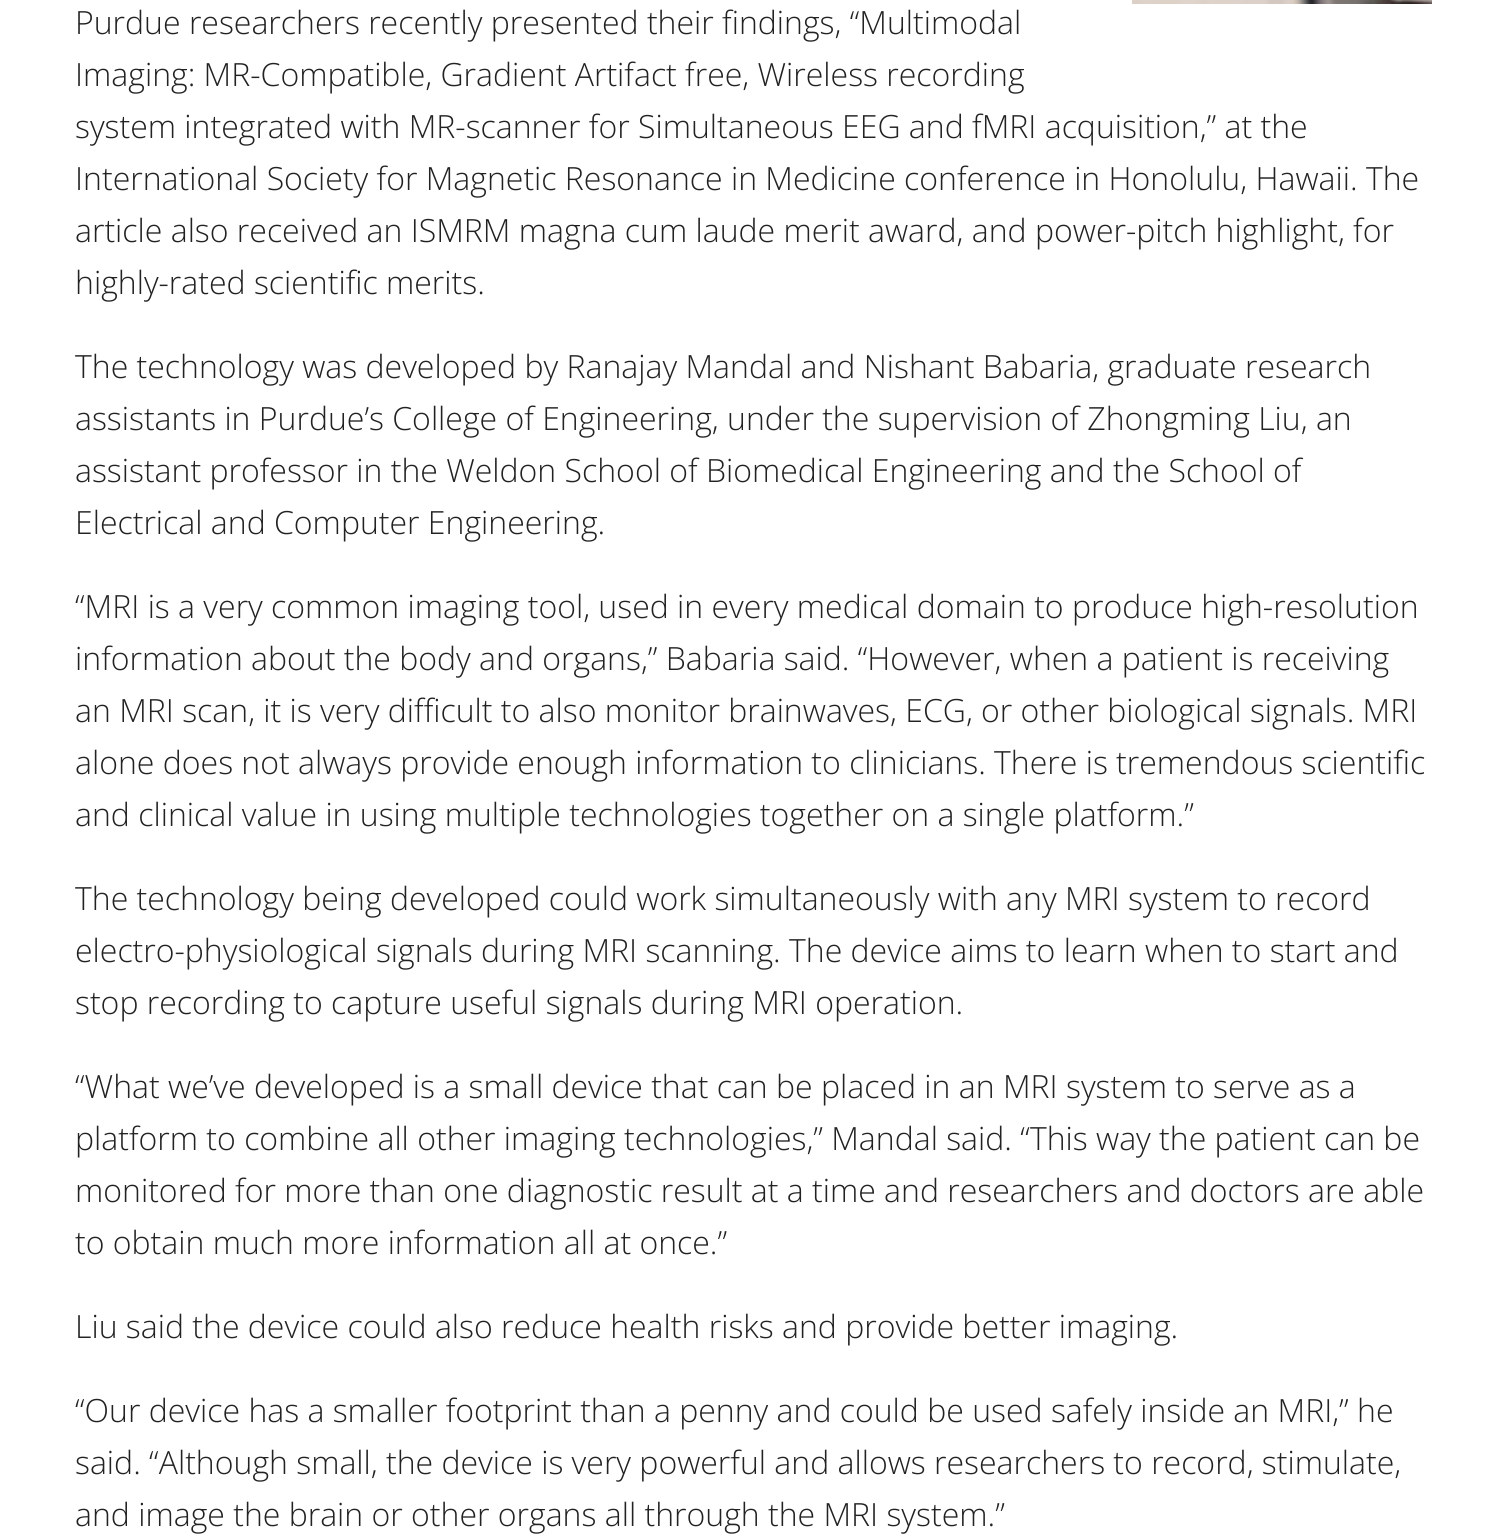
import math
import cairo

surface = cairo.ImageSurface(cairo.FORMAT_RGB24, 1507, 1534)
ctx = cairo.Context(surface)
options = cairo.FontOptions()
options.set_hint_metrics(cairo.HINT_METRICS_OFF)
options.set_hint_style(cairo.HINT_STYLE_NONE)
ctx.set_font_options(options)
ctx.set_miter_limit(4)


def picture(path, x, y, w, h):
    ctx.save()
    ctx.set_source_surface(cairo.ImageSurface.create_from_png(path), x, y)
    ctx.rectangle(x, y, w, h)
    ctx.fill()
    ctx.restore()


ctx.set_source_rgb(1, 1, 1)
ctx.paint()
picture("img1.png", 1132, 0, 300, 4)
ctx.select_font_face("Open Sans Light")
ctx.set_font_size(32)
ctx.set_source_rgb(0.133, 0.133, 0.133)
ctx.move_to(75, 34)
ctx.show_text("Purdue researchers recently presented their findings, “Multimodal")
ctx.move_to(75, 86)
ctx.show_text("Imaging: MR-Compatible, Gradient Artifact free, Wireless recording")
ctx.move_to(75, 138)
ctx.show_text("system integrated with MR-scanner for Simultaneous EEG and fMRI acquisition,” at the")
ctx.move_to(75, 190)
ctx.show_text("International Society for Magnetic Resonance in Medicine conference in Honolulu, Hawaii. The")
ctx.move_to(75, 242)
ctx.show_text("article also received an ISMRM magna cum laude merit award, and power-pitch highlight, for")
ctx.move_to(75, 294)
ctx.show_text("highly-rated scientific merits.")
ctx.move_to(75, 378)
ctx.show_text("The technology was developed by Ranajay Mandal and Nishant Babaria, graduate research")
ctx.move_to(75, 430)
ctx.show_text("assistants in Purdue’s College of Engineering, under the supervision of Zhongming Liu, an")
ctx.move_to(75, 482)
ctx.show_text("assistant professor in the Weldon School of Biomedical Engineering and the School of")
ctx.move_to(75, 534)
ctx.show_text("Electrical and Computer Engineering.")
ctx.move_to(75, 618)
ctx.show_text("“MRI is a very common imaging tool, used in every medical domain to produce high-resolution")
ctx.move_to(75, 670)
ctx.show_text("information about the body and organs,” Babaria said. “However, when a patient is receiving")
ctx.move_to(75, 722)
ctx.show_text("an MRI scan, it is very difficult to also monitor brainwaves, ECG, or other biological signals. MRI")
ctx.move_to(75, 774)
ctx.show_text("alone does not always provide enough information to clinicians. There is tremendous scientific")
ctx.move_to(75, 826)
ctx.show_text("and clinical value in using multiple technologies together on a single platform.”")
ctx.move_to(75, 910)
ctx.show_text("The technology being developed could work simultaneously with any MRI system to record")
ctx.move_to(75, 962)
ctx.show_text("electro-physiological signals during MRI scanning. The device aims to learn when to start and")
ctx.move_to(75, 1014)
ctx.show_text("stop recording to capture useful signals during MRI operation.")
ctx.move_to(75, 1098)
ctx.show_text("“What we’ve developed is a small device that can be placed in an MRI system to serve as a")
ctx.move_to(75, 1150)
ctx.show_text("platform to combine all other imaging technologies,” Mandal said. “This way the patient can be")
ctx.move_to(75, 1202)
ctx.show_text("monitored for more than one diagnostic result at a time and researchers and doctors are able")
ctx.move_to(75, 1254)
ctx.show_text("to obtain much more information all at once.”")
ctx.move_to(75, 1338)
ctx.show_text("Liu said the device could also reduce health risks and provide better imaging.")
ctx.move_to(75, 1422)
ctx.show_text("“Our device has a smaller footprint than a penny and could be used safely inside an MRI,” he")
ctx.move_to(75, 1474)
ctx.show_text("said. “Although small, the device is very powerful and allows researchers to record, stimulate,")
ctx.move_to(75, 1526)
ctx.show_text("and image the brain or other organs all through the MRI system.”")
surface.write_to_png("page.png")
